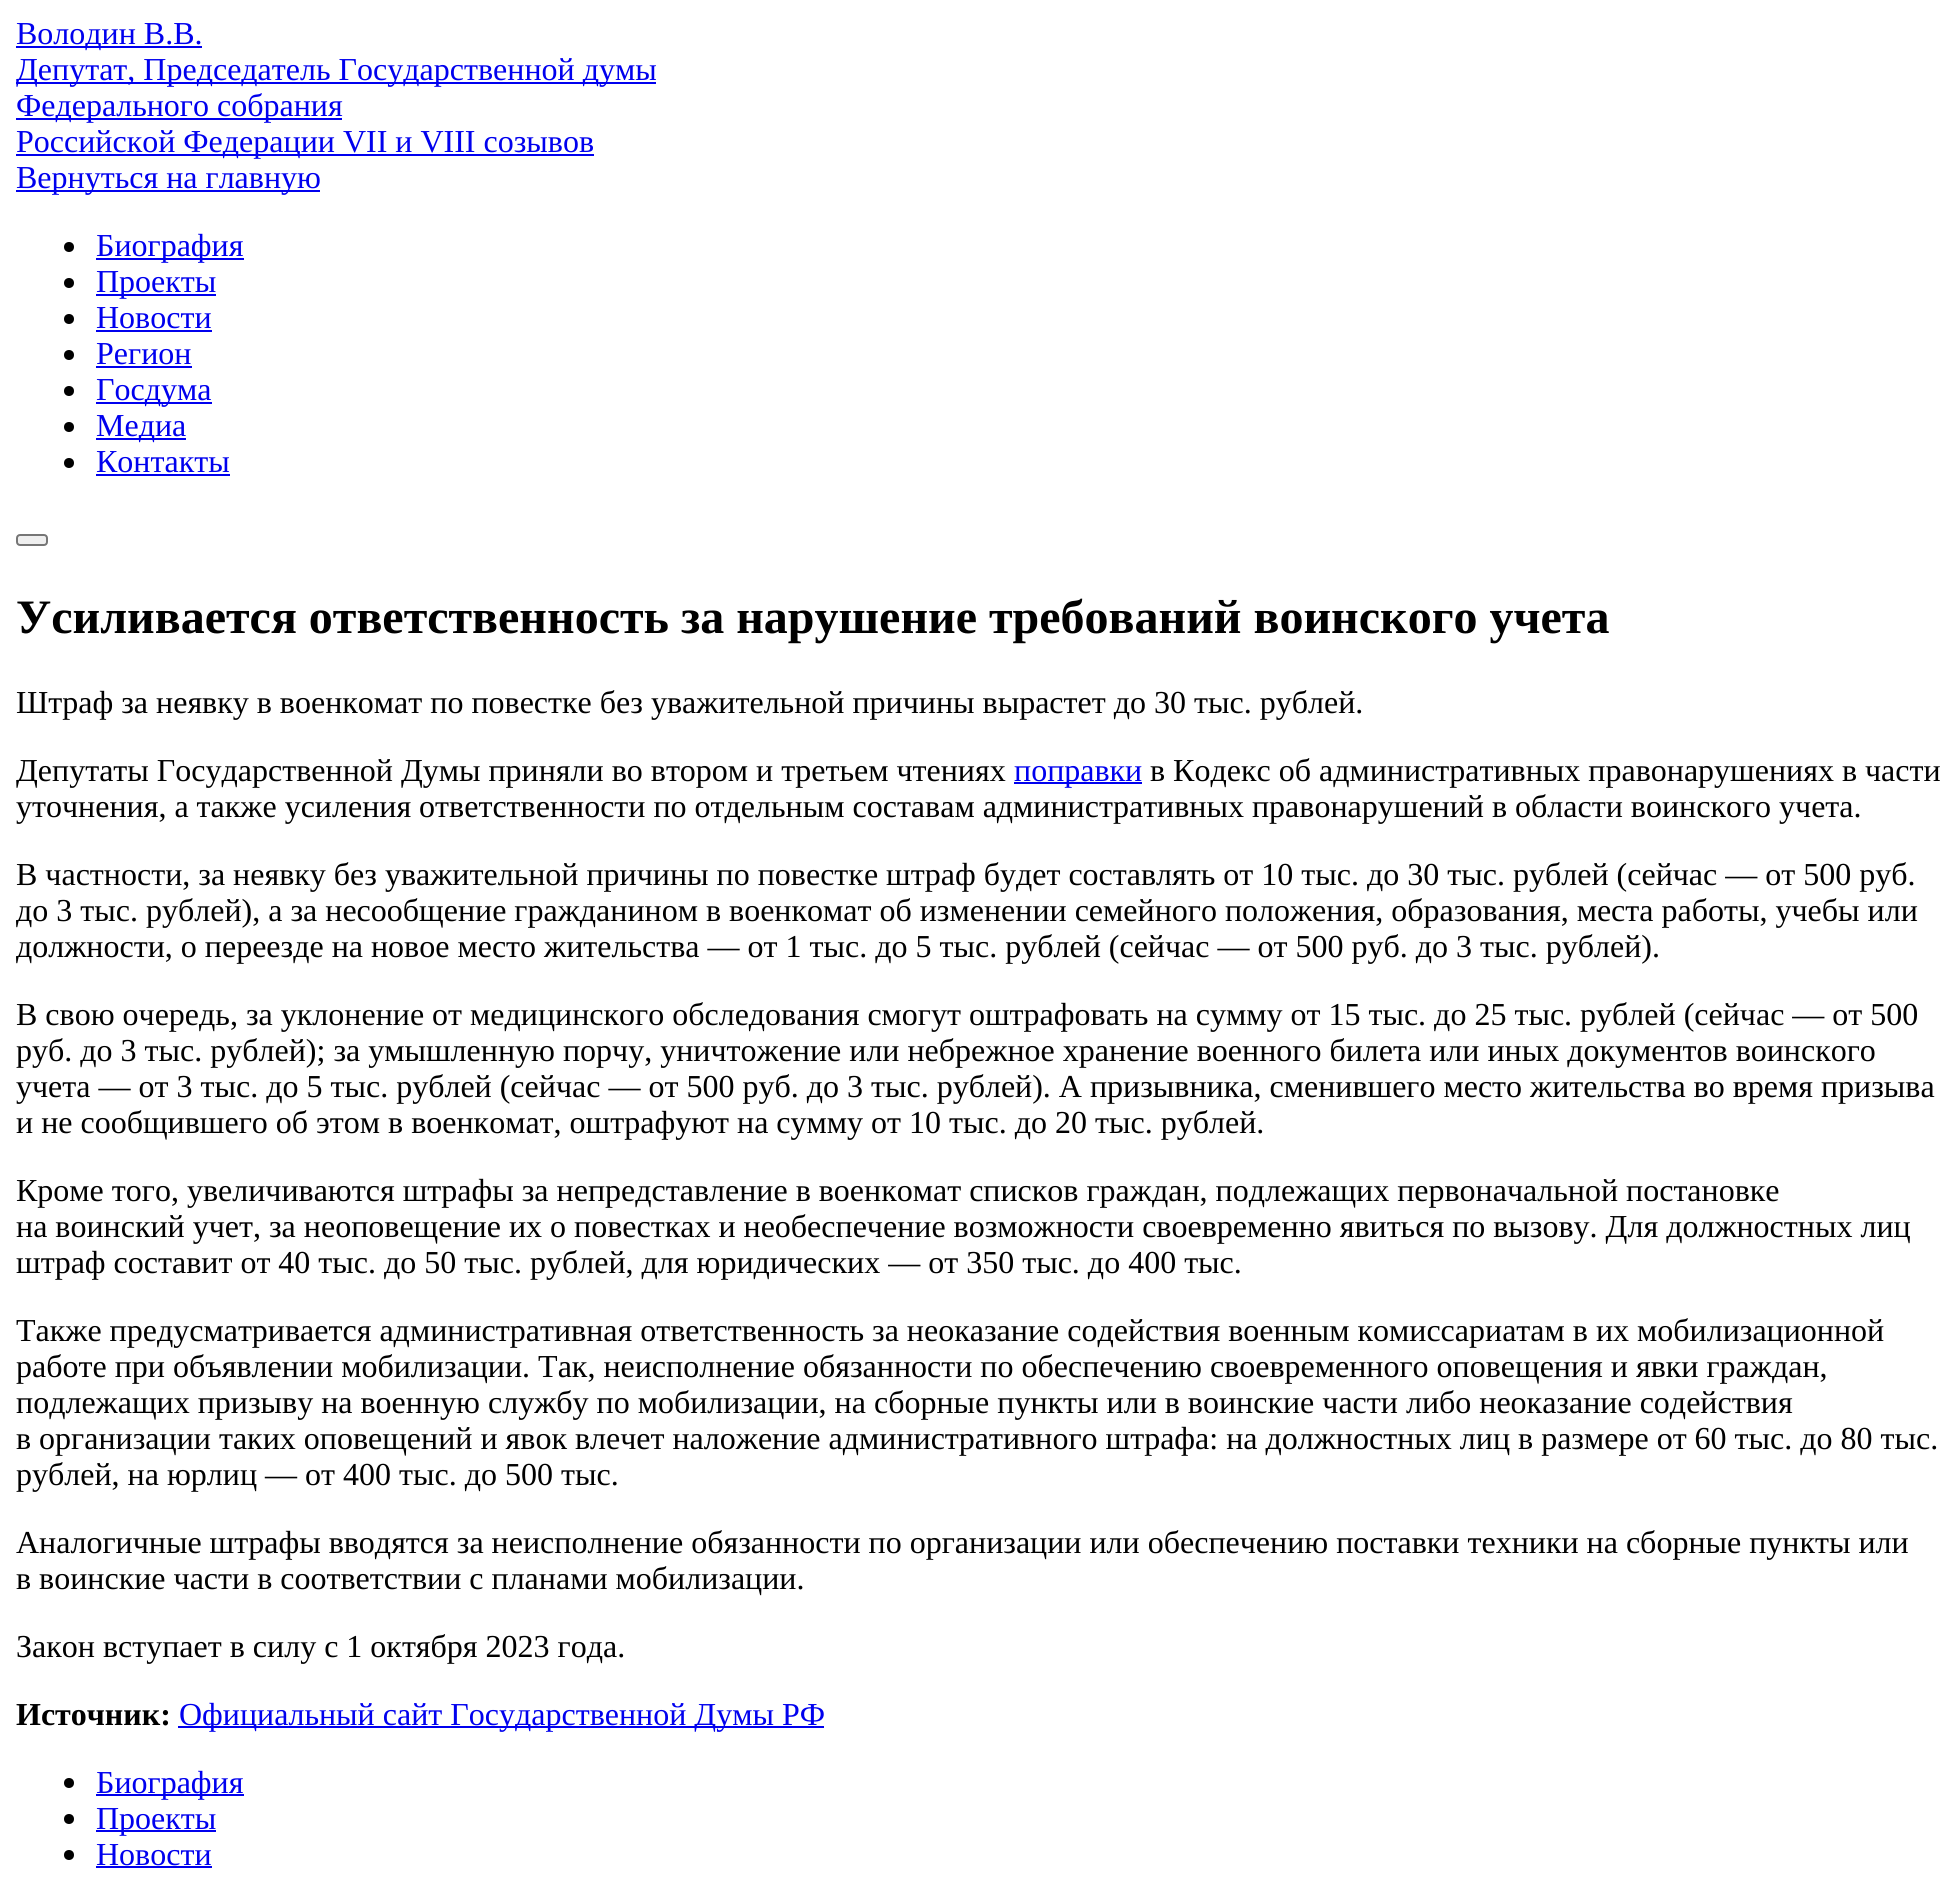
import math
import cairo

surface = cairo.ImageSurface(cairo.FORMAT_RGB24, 1957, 1882)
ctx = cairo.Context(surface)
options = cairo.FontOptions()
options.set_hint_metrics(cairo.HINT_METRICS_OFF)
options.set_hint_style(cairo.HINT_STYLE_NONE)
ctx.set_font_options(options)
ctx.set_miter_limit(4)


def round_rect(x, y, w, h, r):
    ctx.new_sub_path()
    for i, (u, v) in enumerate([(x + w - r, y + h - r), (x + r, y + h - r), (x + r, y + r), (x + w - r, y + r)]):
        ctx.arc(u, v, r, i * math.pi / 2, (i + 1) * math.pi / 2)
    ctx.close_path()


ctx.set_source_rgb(1, 1, 1)
ctx.paint()
ctx.set_source_rgb(0, 0, 0.933)
ctx.rectangle(16, 46, 186, 2)
ctx.fill()
ctx.select_font_face("Liberation Serif")
ctx.set_font_size(32)
ctx.move_to(16, 44)
ctx.show_text("Володин В.В.")
ctx.rectangle(16, 82, 640, 2)
ctx.fill()
ctx.move_to(16, 80)
ctx.show_text("Депутат, Председатель Государственной думы")
ctx.rectangle(16, 118, 326, 2)
ctx.fill()
ctx.move_to(16, 116)
ctx.show_text("Федерального собрания")
ctx.rectangle(16, 154, 578, 2)
ctx.fill()
ctx.move_to(16, 152)
ctx.show_text("Российской Федерации VII и VIII созывов")
ctx.rectangle(16, 190, 304, 2)
ctx.fill()
ctx.move_to(16, 188)
ctx.show_text("Вернуться на главную")
ctx.set_source_rgb(0, 0, 0)
ctx.new_path()
ctx.arc(69, 247, 5, 0, 2 * math.pi)
ctx.fill()
ctx.set_source_rgb(0, 0, 0.933)
ctx.rectangle(96, 258, 148, 2)
ctx.fill()
ctx.move_to(96, 256)
ctx.show_text("Биография")
ctx.set_source_rgb(0, 0, 0)
ctx.new_path()
ctx.arc(69, 283, 5, 0, 2 * math.pi)
ctx.fill()
ctx.set_source_rgb(0, 0, 0.933)
ctx.rectangle(96, 294, 120, 2)
ctx.fill()
ctx.move_to(96, 292)
ctx.show_text("Проекты")
ctx.set_source_rgb(0, 0, 0)
ctx.new_path()
ctx.arc(69, 319, 5, 0, 2 * math.pi)
ctx.fill()
ctx.set_source_rgb(0, 0, 0.933)
ctx.move_to(96, 328)
ctx.show_text("Новости")
ctx.rectangle(96, 330, 116, 2)
ctx.fill()
ctx.set_source_rgb(0, 0, 0)
ctx.arc(69, 355, 5, 0, 2 * math.pi)
ctx.fill()
ctx.set_source_rgb(0, 0, 0.933)
ctx.move_to(96, 364)
ctx.show_text("Регион")
ctx.rectangle(96, 366, 96, 2)
ctx.fill()
ctx.set_source_rgb(0, 0, 0)
ctx.arc(69, 391, 5, 0, 2 * math.pi)
ctx.fill()
ctx.set_source_rgb(0, 0, 0.933)
ctx.rectangle(96, 402, 116, 2)
ctx.fill()
ctx.move_to(96, 400)
ctx.show_text("Госдума")
ctx.set_source_rgb(0, 0, 0)
ctx.new_path()
ctx.arc(69, 427, 5, 0, 2 * math.pi)
ctx.fill()
ctx.set_source_rgb(0, 0, 0.933)
ctx.rectangle(96, 438, 90, 2)
ctx.fill()
ctx.move_to(96, 436)
ctx.show_text("Медиа")
ctx.set_source_rgb(0, 0, 0)
ctx.new_path()
ctx.arc(69, 463, 5, 0, 2 * math.pi)
ctx.fill()
ctx.set_source_rgb(0, 0, 0.933)
ctx.move_to(96, 472)
ctx.show_text("Контакты")
ctx.rectangle(96, 474, 134, 2)
ctx.fill()
ctx.set_source_rgb(0.937, 0.937, 0.937)
round_rect(17, 535, 30, 10, 3)
ctx.fill_preserve()
ctx.set_source_rgb(0.463, 0.463, 0.463)
ctx.stroke()
ctx.select_font_face("Liberation Serif", cairo.FONT_SLANT_NORMAL, cairo.FONT_WEIGHT_BOLD)
ctx.set_font_size(48)
ctx.set_source_rgb(0, 0, 0)
ctx.move_to(16, 633)
ctx.show_text("Усиливается ответственность за нарушение требований воинского учета")
ctx.select_font_face("Liberation Serif")
ctx.set_font_size(32)
ctx.move_to(16, 713)
ctx.show_text("Штраф за неявку в военкомат по повестке без уважительной причины вырастет до 30 тыс. рублей.")
ctx.move_to(16, 781)
ctx.show_text("Депутаты Государственной Думы приняли во втором и третьем чтениях")
ctx.set_source_rgb(0, 0, 0.933)
ctx.rectangle(1014, 782, 128, 2)
ctx.fill()
ctx.move_to(1014, 781)
ctx.show_text("поправки")
ctx.set_source_rgb(0, 0, 0)
ctx.move_to(1150, 781)
ctx.show_text("в Кодекс об административных правонарушениях в части")
ctx.move_to(16, 817)
ctx.show_text("уточнения, а также усиления ответственности по отдельным составам административных правонарушений в области воинского учета.")
ctx.move_to(16, 885)
ctx.show_text("В частности, за неявку без уважительной причины по повестке штраф будет составлять от 10 тыс. до 30 тыс. рублей (сейчас — от 500 руб.")
ctx.move_to(16, 921)
ctx.show_text("до 3 тыс. рублей), а за несообщение гражданином в военкомат об изменении семейного положения, образования, места работы, учебы или")
ctx.move_to(16, 957)
ctx.show_text("должности, о переезде на новое место жительства — от 1 тыс. до 5 тыс. рублей (сейчас — от 500 руб. до 3 тыс. рублей).")
ctx.move_to(16, 1025)
ctx.show_text("В свою очередь, за уклонение от медицинского обследования смогут оштрафовать на сумму от 15 тыс. до 25 тыс. рублей (сейчас — от 500")
ctx.move_to(16, 1061)
ctx.show_text("руб. до 3 тыс. рублей); за умышленную порчу, уничтожение или небрежное хранение военного билета или иных документов воинского")
ctx.move_to(16, 1097)
ctx.show_text("учета — от 3 тыс. до 5 тыс. рублей (сейчас — от 500 руб. до 3 тыс. рублей). А призывника, сменившего место жительства во время призыва")
ctx.move_to(16, 1133)
ctx.show_text("и не сообщившего об этом в военкомат, оштрафуют на сумму от 10 тыс. до 20 тыс. рублей.")
ctx.move_to(16, 1201)
ctx.show_text("Кроме того, увеличиваются штрафы за непредставление в военкомат списков граждан, подлежащих первоначальной постановке")
ctx.move_to(16, 1237)
ctx.show_text("на воинский учет, за неоповещение их о повестках и необеспечение возможности своевременно явиться по вызову. Для должностных лиц")
ctx.move_to(16, 1273)
ctx.show_text("штраф составит от 40 тыс. до 50 тыс. рублей, для юридических — от 350 тыс. до 400 тыс.")
ctx.move_to(16, 1341)
ctx.show_text("Также предусматривается административная ответственность за неоказание содействия военным комиссариатам в их мобилизационной")
ctx.move_to(16, 1377)
ctx.show_text("работе при объявлении мобилизации. Так, неисполнение обязанности по обеспечению своевременного оповещения и явки граждан,")
ctx.move_to(16, 1413)
ctx.show_text("подлежащих призыву на военную службу по мобилизации, на сборные пункты или в воинские части либо неоказание содействия")
ctx.move_to(16, 1449)
ctx.show_text("в организации таких оповещений и явок влечет наложение административного штрафа: на должностных лиц в размере от 60 тыс. до 80 тыс.")
ctx.move_to(16, 1485)
ctx.show_text("рублей, на юрлиц — от 400 тыс. до 500 тыс.")
ctx.move_to(16, 1553)
ctx.show_text("Аналогичные штрафы вводятся за неисполнение обязанности по организации или обеспечению поставки техники на сборные пункты или")
ctx.move_to(16, 1589)
ctx.show_text("в воинские части в соответствии с планами мобилизации.")
ctx.move_to(16, 1657)
ctx.show_text("Закон вступает в силу с 1 октября 2023 года.")
ctx.select_font_face("Liberation Serif", cairo.FONT_SLANT_NORMAL, cairo.FONT_WEIGHT_BOLD)
ctx.move_to(16, 1725)
ctx.show_text("Источник:")
ctx.set_source_rgb(0, 0, 0.933)
ctx.rectangle(178, 1726, 646, 2)
ctx.fill()
ctx.select_font_face("Liberation Serif")
ctx.move_to(179, 1725)
ctx.show_text("Официальный сайт Государственной Думы РФ")
ctx.set_source_rgb(0, 0, 0)
ctx.new_path()
ctx.arc(69, 1783, 5, 0, 2 * math.pi)
ctx.fill()
ctx.set_source_rgb(0, 0, 0.933)
ctx.rectangle(96, 1794, 148, 2)
ctx.fill()
ctx.move_to(96, 1793)
ctx.show_text("Биография")
ctx.set_source_rgb(0, 0, 0)
ctx.new_path()
ctx.arc(69, 1819, 5, 0, 2 * math.pi)
ctx.fill()
ctx.set_source_rgb(0, 0, 0.933)
ctx.rectangle(96, 1830, 120, 2)
ctx.fill()
ctx.move_to(96, 1829)
ctx.show_text("Проекты")
ctx.set_source_rgb(0, 0, 0)
ctx.new_path()
ctx.arc(69, 1855, 5, 0, 2 * math.pi)
ctx.fill()
ctx.set_source_rgb(0, 0, 0.933)
ctx.move_to(96, 1865)
ctx.show_text("Новости")
ctx.rectangle(96, 1866, 116, 2)
ctx.fill()
surface.write_to_png("page.png")
